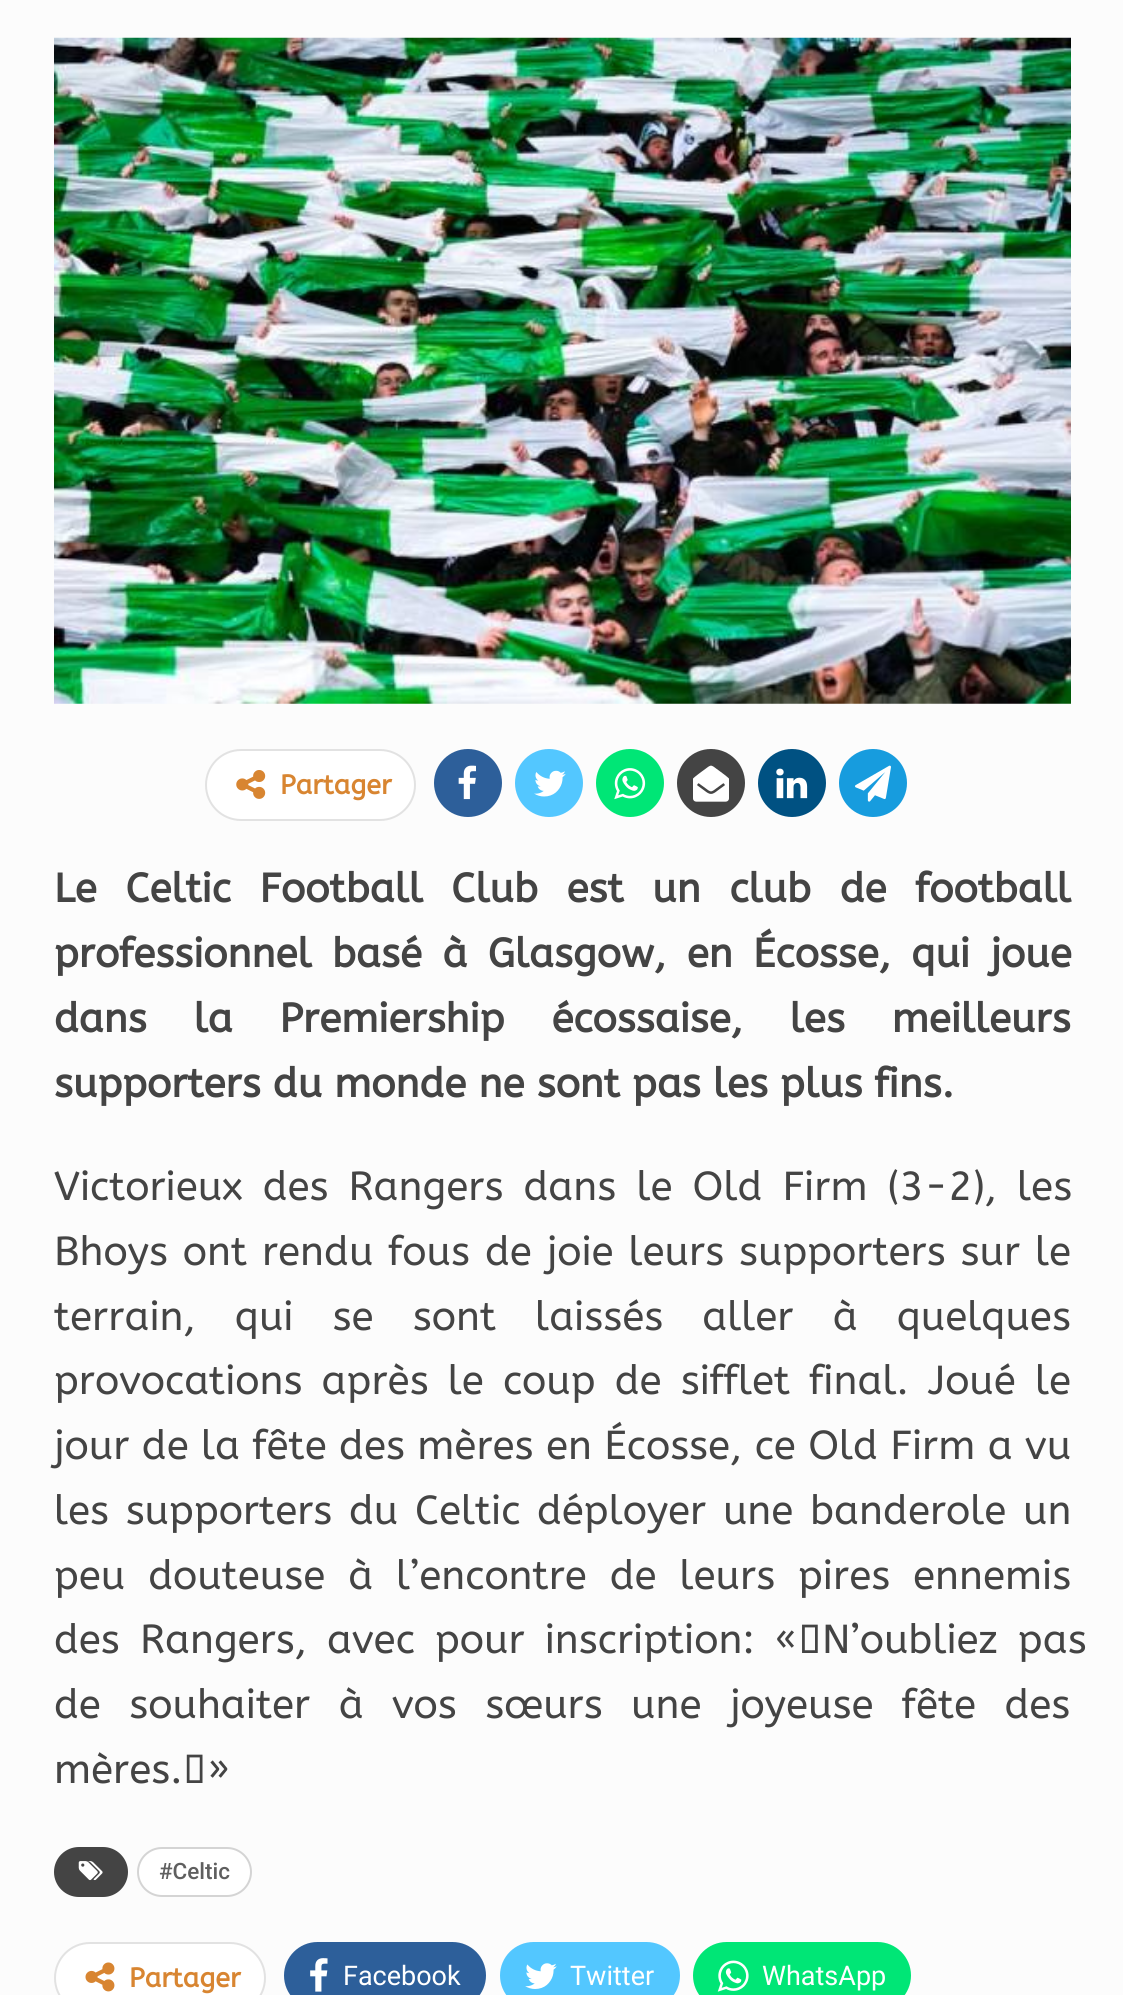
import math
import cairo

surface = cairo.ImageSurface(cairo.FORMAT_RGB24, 1123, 1995)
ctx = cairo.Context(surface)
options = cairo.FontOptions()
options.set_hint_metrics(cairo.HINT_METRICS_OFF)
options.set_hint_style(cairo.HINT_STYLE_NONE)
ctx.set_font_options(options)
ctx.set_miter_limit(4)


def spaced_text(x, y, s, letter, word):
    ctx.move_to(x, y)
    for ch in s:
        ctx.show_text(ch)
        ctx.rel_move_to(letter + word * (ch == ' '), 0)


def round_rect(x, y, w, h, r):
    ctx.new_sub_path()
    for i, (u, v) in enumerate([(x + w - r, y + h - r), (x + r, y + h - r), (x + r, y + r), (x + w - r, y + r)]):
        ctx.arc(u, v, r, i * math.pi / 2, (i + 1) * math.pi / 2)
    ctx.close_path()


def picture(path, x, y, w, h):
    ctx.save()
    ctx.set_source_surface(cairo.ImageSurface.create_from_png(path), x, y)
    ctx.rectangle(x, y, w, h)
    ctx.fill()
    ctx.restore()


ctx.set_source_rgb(0.988, 0.988, 0.988)
ctx.paint()
picture("img1.png", 54, 37, 1017, 667)
ctx.set_source_rgb(1, 1, 1)
round_rect(206, 750, 209, 70, 35)
ctx.fill_preserve()
ctx.set_source_rgb(0.886, 0.886, 0.886)
ctx.stroke()
picture("img2.png", 236, 770, 30, 29)
ctx.select_font_face("ABeeZee", cairo.FONT_SLANT_NORMAL, cairo.FONT_WEIGHT_BOLD)
ctx.set_font_size(27)
ctx.set_source_rgb(0.847, 0.522, 0.192)
ctx.move_to(280, 794)
ctx.show_text("Partager")
ctx.set_source_rgb(0.176, 0.373, 0.604)
ctx.new_path()
ctx.arc(468, 783, 34, 0, 2 * math.pi)
ctx.fill()
picture("img3.png", 458, 765, 18, 35)
ctx.set_source_rgb(0.325, 0.78, 1)
ctx.arc(549, 783, 34, 0, 2 * math.pi)
ctx.fill()
picture("img4.png", 534, 770, 32, 27)
ctx.set_source_rgb(0, 0.902, 0.463)
ctx.arc(630, 783, 34, 0, 2 * math.pi)
ctx.fill()
picture("img5.png", 614, 768, 32, 32)
ctx.set_source_rgb(0.267, 0.267, 0.267)
ctx.arc(711, 783, 34, 0, 2 * math.pi)
ctx.fill()
picture("img6.png", 693, 765, 36, 37)
ctx.set_source_rgb(0, 0.318, 0.51)
ctx.arc(792, 783, 34, 0, 2 * math.pi)
ctx.fill()
picture("img7.png", 776, 768, 32, 31)
ctx.set_source_rgb(0.09, 0.612, 0.871)
ctx.arc(873, 783, 34, 0, 2 * math.pi)
ctx.fill()
picture("img8.png", 855, 765, 36, 37)
ctx.set_font_size(40.5)
ctx.set_source_rgb(0.267, 0.267, 0.267)
spaced_text(54, 902, "Le Celtic Football Club est un club de football", 0, 16.5)
spaced_text(54, 967, "professionnel basé à Glasgow, en Écosse, qui joue", 0, 8.25)
spaced_text(54, 1032, "dans la Premiership écossaise, les meilleurs", 0, 34.75)
ctx.move_to(54, 1097)
ctx.show_text("supporters du monde ne sont pas les plus fins.")
ctx.select_font_face("ABeeZee")
spaced_text(54, 1200, "Victorieux des Rangers dans le Old Firm (3-2), les", 0, 8)
spaced_text(54, 1265, "Bhoys ont rendu fous de joie leurs supporters sur le", 0, 2.75)
spaced_text(54, 1330, "terrain, qui se sont laissés aller à quelques", 0, 27)
spaced_text(54, 1394, "provocations après le coup de sifflet final. Joué le", 0, 7)
spaced_text(54, 1459, "jour de la fête des mères en Écosse, ce Old Firm a vu", 0, 0.25)
spaced_text(54, 1524, "les supporters du Celtic déployer une banderole un", 0, 4.5)
spaced_text(54, 1589, "peu douteuse à l’encontre de leurs pires ennemis", 0, 10.75)
spaced_text(54, 1653, "des Rangers, avec pour inscription: « N’oubliez pas", 0, 8)
spaced_text(54, 1718, "de souhaiter à vos sœurs une joyeuse fête des", 0, 16.25)
ctx.move_to(54, 1783)
ctx.show_text("mères. »")
round_rect(55, 1848, 72, 48, 24)
ctx.fill_preserve()
ctx.stroke()
picture("img9.png", 78, 1861, 25, 20)
ctx.set_source_rgb(1, 1, 1)
round_rect(138, 1848, 113, 48, 24)
ctx.fill_preserve()
ctx.set_source_rgb(0.831, 0.831, 0.831)
ctx.stroke()
ctx.select_font_face("Roboto Medium")
ctx.set_font_size(22.5)
ctx.set_source_rgb(0.373, 0.373, 0.373)
ctx.move_to(159, 1879)
ctx.show_text("#Celtic")
ctx.set_source_rgb(1, 1, 1)
round_rect(55, 1943, 210, 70, 35)
ctx.fill_preserve()
ctx.set_source_rgb(0.886, 0.886, 0.886)
ctx.stroke()
picture("img10.png", 85, 1962, 30, 30)
ctx.select_font_face("ABeeZee", cairo.FONT_SLANT_NORMAL, cairo.FONT_WEIGHT_BOLD)
ctx.set_font_size(27)
ctx.set_source_rgb(0.847, 0.522, 0.192)
ctx.move_to(129, 1987)
ctx.show_text("Partager")
ctx.set_source_rgb(0.176, 0.373, 0.604)
round_rect(284, 1942, 202, 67, 33.5)
ctx.fill()
picture("img11.png", 310, 1958, 18, 34)
ctx.select_font_face("Roboto")
ctx.set_source_rgb(1, 1, 1)
ctx.move_to(343, 1985)
ctx.show_text("Facebook")
ctx.set_source_rgb(0.325, 0.78, 1)
round_rect(500, 1942, 180, 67, 33.5)
ctx.fill()
picture("img12.png", 525, 1963, 32, 26)
ctx.set_source_rgb(1, 1, 1)
ctx.move_to(570, 1985)
ctx.show_text("Twitter")
ctx.set_source_rgb(0, 0.902, 0.463)
round_rect(693, 1942, 218, 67, 33.5)
ctx.fill()
picture("img13.png", 717, 1960, 32, 32)
ctx.set_source_rgb(1, 1, 1)
ctx.move_to(762, 1985)
ctx.show_text("WhatsApp")
surface.write_to_png("page.png")
